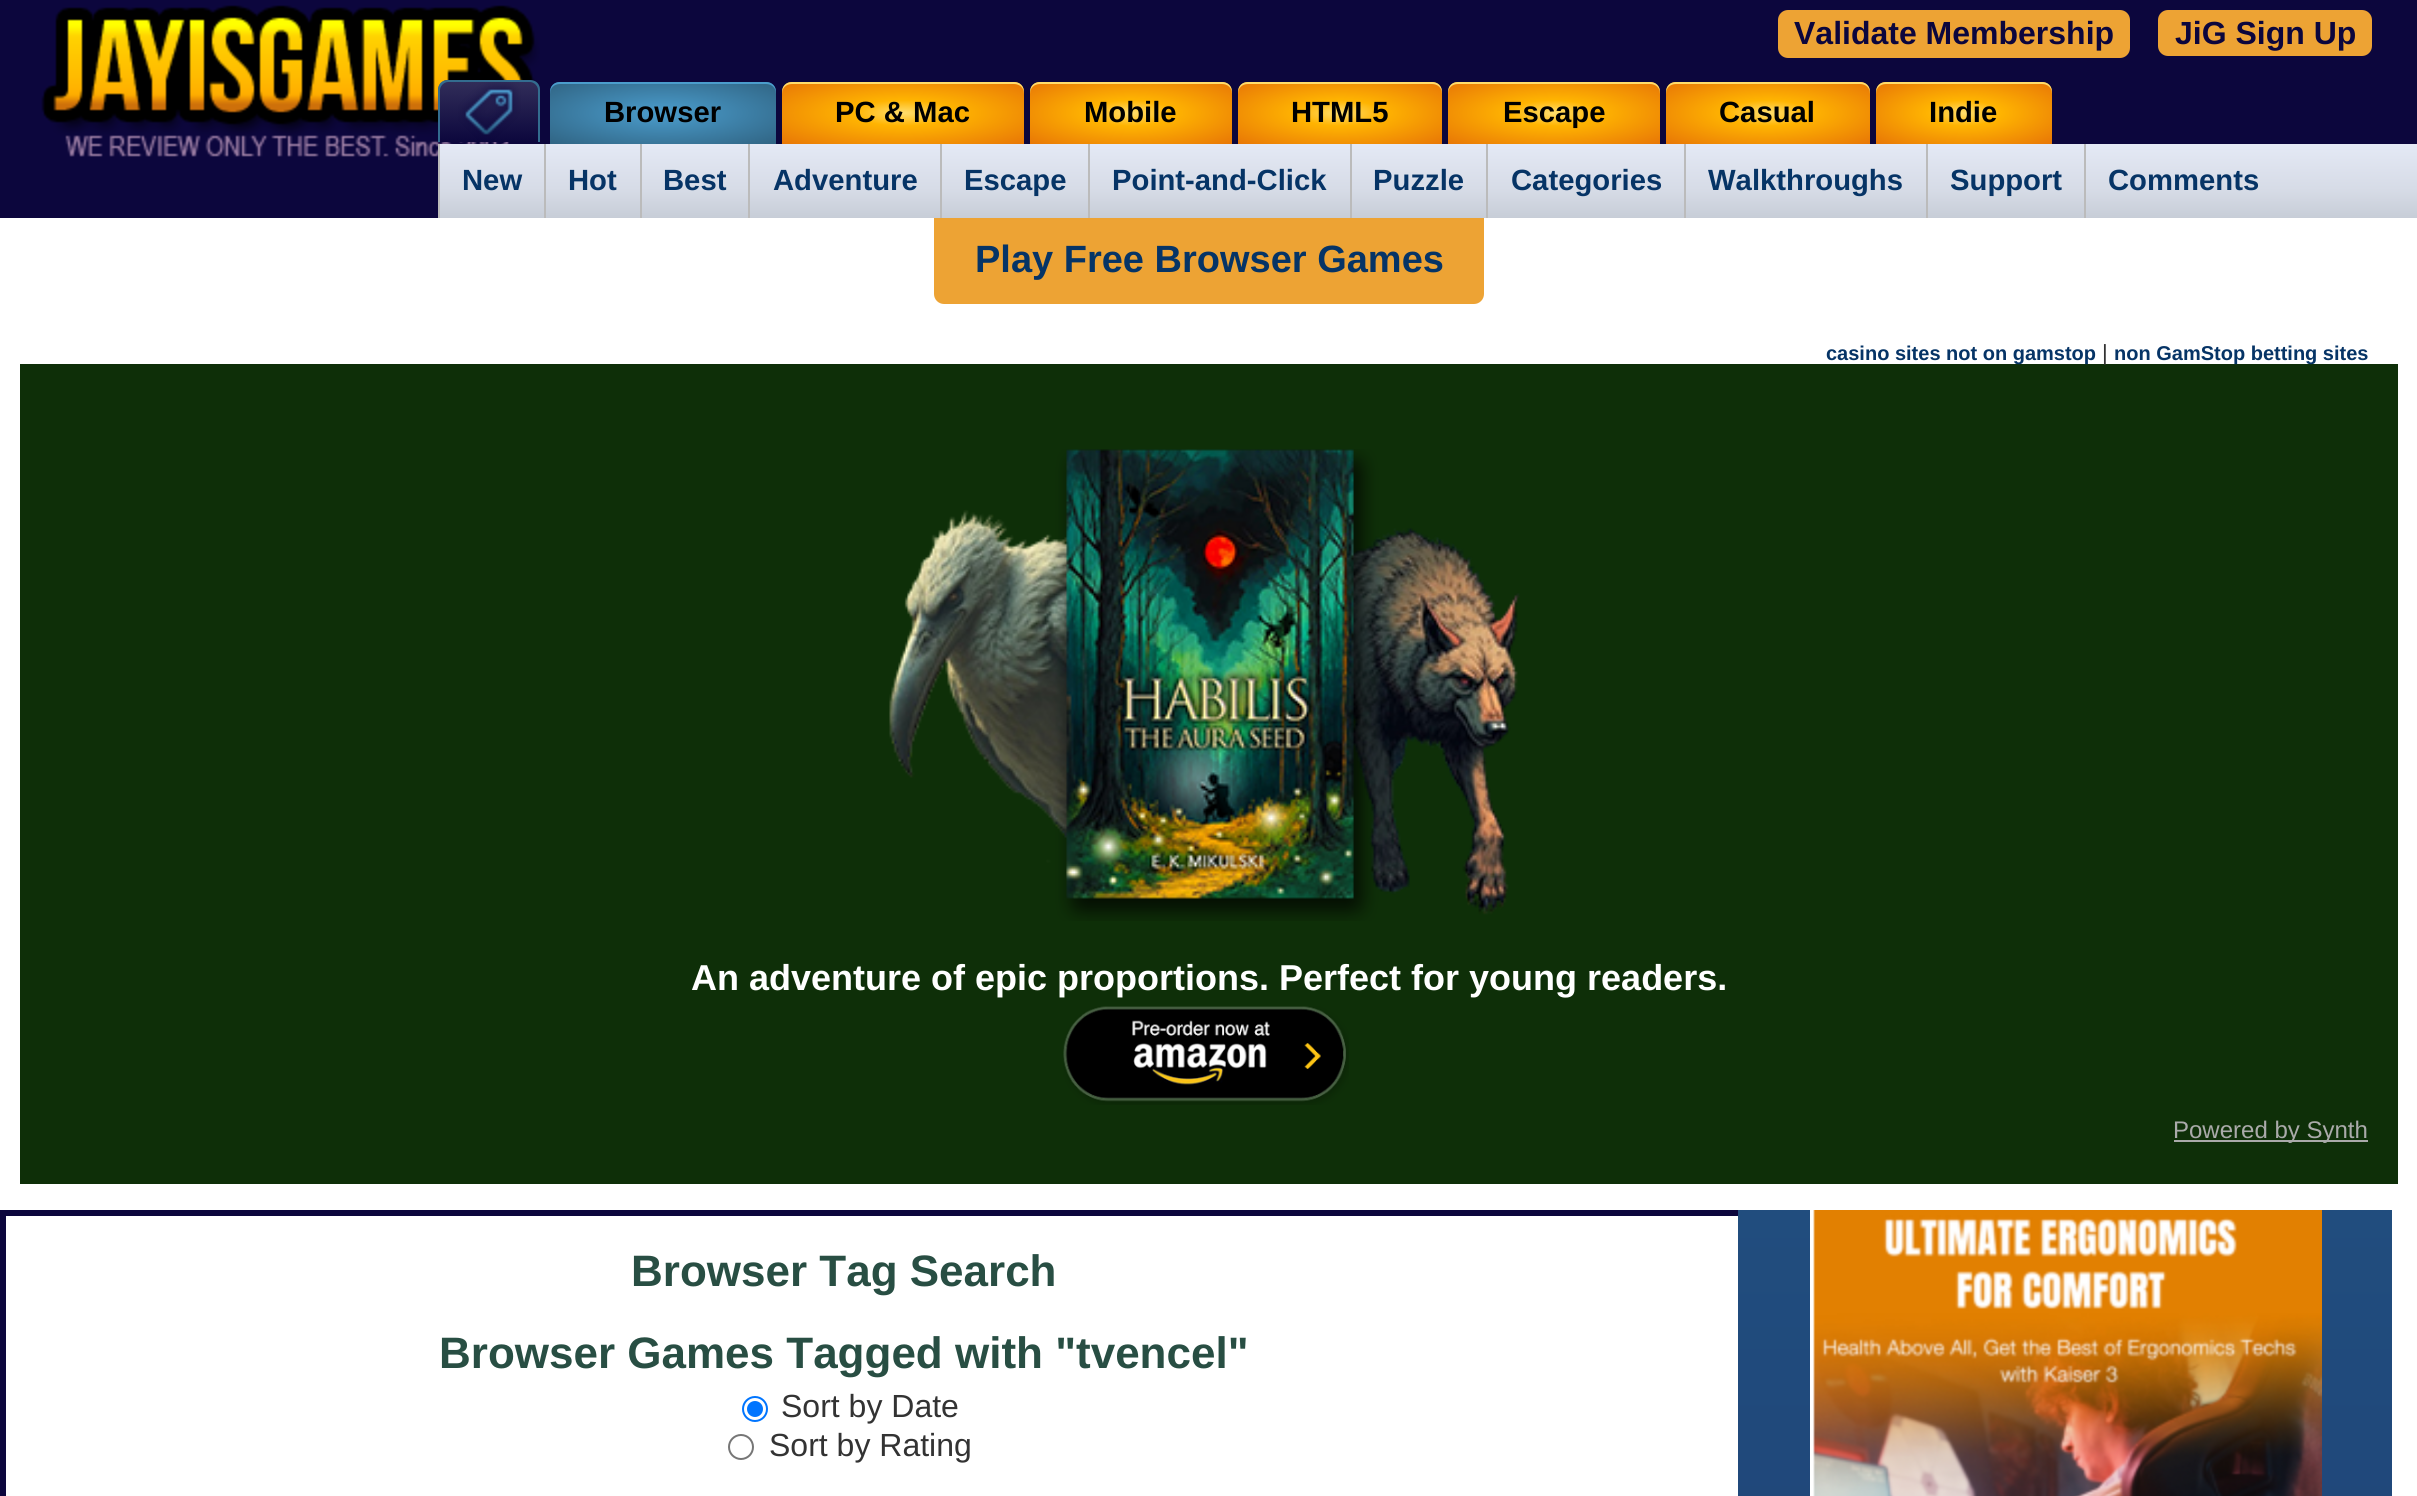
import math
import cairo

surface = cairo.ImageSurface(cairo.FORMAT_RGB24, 2417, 1496)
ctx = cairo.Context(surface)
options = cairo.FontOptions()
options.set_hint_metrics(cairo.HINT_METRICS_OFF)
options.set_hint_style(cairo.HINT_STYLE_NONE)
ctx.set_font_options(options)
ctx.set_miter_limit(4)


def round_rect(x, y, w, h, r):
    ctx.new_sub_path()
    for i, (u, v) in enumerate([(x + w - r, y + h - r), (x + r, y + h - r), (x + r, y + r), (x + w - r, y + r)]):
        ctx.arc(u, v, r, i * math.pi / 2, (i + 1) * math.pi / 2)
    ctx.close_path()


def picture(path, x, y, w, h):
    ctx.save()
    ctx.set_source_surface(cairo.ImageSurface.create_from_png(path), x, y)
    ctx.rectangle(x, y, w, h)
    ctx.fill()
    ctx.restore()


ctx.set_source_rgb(1, 1, 1)
ctx.paint()
ctx.set_source_rgb(0.047, 0.027, 0.239)
ctx.rectangle(0, 0, 2417, 218)
ctx.fill()
picture("img1.png", 41, 5, 499, 152)
ctx.set_source_rgb(0.929, 0.639, 0.204)
round_rect(1778, 10, 352, 48, 10)
ctx.fill()
ctx.select_font_face("Liberation Sans", cairo.FONT_SLANT_NORMAL, cairo.FONT_WEIGHT_BOLD)
ctx.set_font_size(32)
ctx.set_source_rgb(0.047, 0.027, 0.239)
ctx.move_to(1794, 44)
ctx.show_text("Validate Membership")
ctx.set_source_rgb(0.929, 0.639, 0.204)
round_rect(2158, 10, 214, 46, 10)
ctx.fill()
ctx.set_source_rgb(0.047, 0.027, 0.239)
ctx.move_to(2175, 44)
ctx.show_text("JiG Sign Up")
gradient = cairo.RadialGradient(0, 0, 0, 0, 0, 1)
gradient.set_matrix(cairo.Matrix(1 / 160, 0, 0, 1 / 44, -1 * 663 / 160, -1 * 113 / 44))
gradient.add_color_stop_rgba(0, 0.294, 0.616, 0.804, 1)
gradient.add_color_stop_rgba(1, 0.188, 0.392, 0.514, 1)
ctx.set_source(gradient)
ctx.new_path()
ctx.move_to(560, 82)
ctx.line_to(766, 82)
ctx.curve_to(771.5, 82, 776, 86.5, 776, 92)
ctx.line_to(776, 144)
ctx.line_to(550, 144)
ctx.line_to(550, 92)
ctx.curve_to(550, 86.5, 554.5, 82, 560, 82)
ctx.close_path()
ctx.fill()
ctx.set_source_rgb(0.294, 0.616, 0.804)
ctx.new_path()
ctx.move_to(560, 84)
ctx.line_to(766, 84)
ctx.curve_to(772, 84, 776, 88, 776, 94)
ctx.line_to(776, 92)
ctx.curve_to(776, 86, 772, 82, 766, 82)
ctx.line_to(560, 82)
ctx.curve_to(554, 82, 550, 86, 550, 92)
ctx.line_to(550, 94)
ctx.curve_to(550, 88, 554, 84, 560, 84)
ctx.close_path()
ctx.fill()
ctx.set_font_size(29.25)
ctx.set_source_rgb(0, 0, 0)
ctx.move_to(604, 122)
ctx.show_text("Browser")
gradient = cairo.RadialGradient(0, 0, 0, 0, 0, 1)
gradient.set_matrix(cairo.Matrix(1 / 171, 0, 0, 1 / 44, -1 * 903 / 171, -1 * 113 / 44))
gradient.add_color_stop_rgba(0.01, 1, 0.867, 0.42, 1)
gradient.add_color_stop_rgba(0.29, 1, 0.706, 0.004, 1)
gradient.add_color_stop_rgba(0.99, 0.91, 0.467, 0.024, 1)
ctx.set_source(gradient)
ctx.new_path()
ctx.move_to(792, 82)
ctx.line_to(1014, 82)
ctx.curve_to(1019.5, 82, 1024, 86.5, 1024, 92)
ctx.line_to(1024, 144)
ctx.line_to(782, 144)
ctx.line_to(782, 92)
ctx.curve_to(782, 86.5, 786.5, 82, 792, 82)
ctx.close_path()
ctx.fill()
ctx.set_source_rgb(1, 0.867, 0.42)
ctx.new_path()
ctx.move_to(792, 84)
ctx.line_to(1014, 84)
ctx.curve_to(1020, 84, 1024, 88, 1024, 94)
ctx.line_to(1024, 92)
ctx.curve_to(1024, 86, 1020, 82, 1014, 82)
ctx.line_to(792, 82)
ctx.curve_to(786, 82, 782, 86, 782, 92)
ctx.line_to(782, 94)
ctx.curve_to(782, 88, 786, 84, 792, 84)
ctx.close_path()
ctx.fill()
ctx.set_source_rgb(0, 0, 0)
ctx.move_to(835, 122)
ctx.show_text("PC & Mac")
gradient = cairo.RadialGradient(0, 0, 0, 0, 0, 1)
gradient.set_matrix(cairo.Matrix(1 / 143, 0, 0, 1 / 44, -1 * 1131 / 143, -1 * 113 / 44))
gradient.add_color_stop_rgba(0.01, 1, 0.867, 0.42, 1)
gradient.add_color_stop_rgba(0.29, 1, 0.706, 0.004, 1)
gradient.add_color_stop_rgba(0.99, 0.91, 0.467, 0.024, 1)
ctx.set_source(gradient)
ctx.new_path()
ctx.move_to(1040, 82)
ctx.line_to(1222, 82)
ctx.curve_to(1227.5, 82, 1232, 86.5, 1232, 92)
ctx.line_to(1232, 144)
ctx.line_to(1030, 144)
ctx.line_to(1030, 92)
ctx.curve_to(1030, 86.5, 1034.5, 82, 1040, 82)
ctx.close_path()
ctx.fill()
ctx.set_source_rgb(1, 0.867, 0.42)
ctx.new_path()
ctx.move_to(1040, 84)
ctx.line_to(1222, 84)
ctx.curve_to(1228, 84, 1232, 88, 1232, 94)
ctx.line_to(1232, 92)
ctx.curve_to(1232, 86, 1228, 82, 1222, 82)
ctx.line_to(1040, 82)
ctx.curve_to(1034, 82, 1030, 86, 1030, 92)
ctx.line_to(1030, 94)
ctx.curve_to(1030, 88, 1034, 84, 1040, 84)
ctx.close_path()
ctx.fill()
ctx.set_source_rgb(0, 0, 0)
ctx.move_to(1084, 122)
ctx.show_text("Mobile")
gradient = cairo.RadialGradient(0, 0, 0, 0, 0, 1)
gradient.set_matrix(cairo.Matrix(1 / 144, 0, 0, 1 / 44, -1 * 1340 / 144, -1 * 113 / 44))
gradient.add_color_stop_rgba(0.01, 1, 0.867, 0.42, 1)
gradient.add_color_stop_rgba(0.29, 1, 0.706, 0.004, 1)
gradient.add_color_stop_rgba(0.99, 0.91, 0.467, 0.024, 1)
ctx.set_source(gradient)
ctx.new_path()
ctx.move_to(1248, 82)
ctx.line_to(1432, 82)
ctx.curve_to(1437.5, 82, 1442, 86.5, 1442, 92)
ctx.line_to(1442, 144)
ctx.line_to(1238, 144)
ctx.line_to(1238, 92)
ctx.curve_to(1238, 86.5, 1242.5, 82, 1248, 82)
ctx.close_path()
ctx.fill()
ctx.set_source_rgb(1, 0.867, 0.42)
ctx.new_path()
ctx.move_to(1248, 84)
ctx.line_to(1432, 84)
ctx.curve_to(1438, 84, 1442, 88, 1442, 94)
ctx.line_to(1442, 92)
ctx.curve_to(1442, 86, 1438, 82, 1432, 82)
ctx.line_to(1248, 82)
ctx.curve_to(1242, 82, 1238, 86, 1238, 92)
ctx.line_to(1238, 94)
ctx.curve_to(1238, 88, 1242, 84, 1248, 84)
ctx.close_path()
ctx.fill()
ctx.set_source_rgb(0, 0, 0)
ctx.move_to(1291, 122)
ctx.show_text("HTML5")
gradient = cairo.RadialGradient(0, 0, 0, 0, 0, 1)
gradient.set_matrix(cairo.Matrix(1 / 150, 0, 0, 1 / 44, -1 * 1554 / 150, -1 * 113 / 44))
gradient.add_color_stop_rgba(0.01, 1, 0.867, 0.42, 1)
gradient.add_color_stop_rgba(0.29, 1, 0.706, 0.004, 1)
gradient.add_color_stop_rgba(0.99, 0.91, 0.467, 0.024, 1)
ctx.set_source(gradient)
ctx.new_path()
ctx.move_to(1458, 82)
ctx.line_to(1650, 82)
ctx.curve_to(1655.5, 82, 1660, 86.5, 1660, 92)
ctx.line_to(1660, 144)
ctx.line_to(1448, 144)
ctx.line_to(1448, 92)
ctx.curve_to(1448, 86.5, 1452.5, 82, 1458, 82)
ctx.close_path()
ctx.fill()
ctx.set_source_rgb(1, 0.867, 0.42)
ctx.new_path()
ctx.move_to(1458, 84)
ctx.line_to(1650, 84)
ctx.curve_to(1656, 84, 1660, 88, 1660, 94)
ctx.line_to(1660, 92)
ctx.curve_to(1660, 86, 1656, 82, 1650, 82)
ctx.line_to(1458, 82)
ctx.curve_to(1452, 82, 1448, 86, 1448, 92)
ctx.line_to(1448, 94)
ctx.curve_to(1448, 88, 1452, 84, 1458, 84)
ctx.close_path()
ctx.fill()
ctx.set_source_rgb(0, 0, 0)
ctx.move_to(1503, 122)
ctx.show_text("Escape")
gradient = cairo.RadialGradient(0, 0, 0, 0, 0, 1)
gradient.set_matrix(cairo.Matrix(1 / 144, 0, 0, 1 / 44, -1 * 1768 / 144, -1 * 113 / 44))
gradient.add_color_stop_rgba(0.01, 1, 0.867, 0.42, 1)
gradient.add_color_stop_rgba(0.29, 1, 0.706, 0.004, 1)
gradient.add_color_stop_rgba(0.99, 0.91, 0.467, 0.024, 1)
ctx.set_source(gradient)
ctx.new_path()
ctx.move_to(1676, 82)
ctx.line_to(1860, 82)
ctx.curve_to(1865.5, 82, 1870, 86.5, 1870, 92)
ctx.line_to(1870, 144)
ctx.line_to(1666, 144)
ctx.line_to(1666, 92)
ctx.curve_to(1666, 86.5, 1670.5, 82, 1676, 82)
ctx.close_path()
ctx.fill()
ctx.set_source_rgb(1, 0.867, 0.42)
ctx.new_path()
ctx.move_to(1676, 84)
ctx.line_to(1860, 84)
ctx.curve_to(1866, 84, 1870, 88, 1870, 94)
ctx.line_to(1870, 92)
ctx.curve_to(1870, 86, 1866, 82, 1860, 82)
ctx.line_to(1676, 82)
ctx.curve_to(1670, 82, 1666, 86, 1666, 92)
ctx.line_to(1666, 94)
ctx.curve_to(1666, 88, 1670, 84, 1676, 84)
ctx.close_path()
ctx.fill()
ctx.set_source_rgb(0, 0, 0)
ctx.move_to(1719, 122)
ctx.show_text("Casual")
gradient = cairo.RadialGradient(0, 0, 0, 0, 0, 1)
gradient.set_matrix(cairo.Matrix(1 / 124, 0, 0, 1 / 44, -1 * 1964 / 124, -1 * 113 / 44))
gradient.add_color_stop_rgba(0.01, 1, 0.867, 0.42, 1)
gradient.add_color_stop_rgba(0.29, 1, 0.706, 0.004, 1)
gradient.add_color_stop_rgba(0.99, 0.91, 0.467, 0.024, 1)
ctx.set_source(gradient)
ctx.new_path()
ctx.move_to(1886, 82)
ctx.line_to(2042, 82)
ctx.curve_to(2047.5, 82, 2052, 86.5, 2052, 92)
ctx.line_to(2052, 144)
ctx.line_to(1876, 144)
ctx.line_to(1876, 92)
ctx.curve_to(1876, 86.5, 1880.5, 82, 1886, 82)
ctx.close_path()
ctx.fill()
ctx.set_source_rgb(1, 0.867, 0.42)
ctx.new_path()
ctx.move_to(1886, 84)
ctx.line_to(2042, 84)
ctx.curve_to(2048, 84, 2052, 88, 2052, 94)
ctx.line_to(2052, 92)
ctx.curve_to(2052, 86, 2048, 82, 2042, 82)
ctx.line_to(1886, 82)
ctx.curve_to(1880, 82, 1876, 86, 1876, 92)
ctx.line_to(1876, 94)
ctx.curve_to(1876, 88, 1880, 84, 1886, 84)
ctx.close_path()
ctx.fill()
ctx.set_source_rgb(0, 0, 0)
ctx.move_to(1929, 122)
ctx.show_text("Indie")
picture("img2.png", 438, 80, 102, 62)
ctx.set_source_rgb(0.2, 0.424, 0.561)
ctx.set_fill_rule(cairo.FILL_RULE_EVEN_ODD)
ctx.new_path()
ctx.move_to(448, 80)
ctx.line_to(530, 80)
ctx.curve_to(536, 80, 540, 84, 540, 90)
ctx.line_to(540, 142)
ctx.line_to(438, 142)
ctx.line_to(438, 90)
ctx.curve_to(438, 84, 442, 80, 448, 80)
ctx.close_path()
ctx.move_to(448, 82)
ctx.line_to(530, 82)
ctx.curve_to(534, 82, 538, 86, 538, 90)
ctx.line_to(538, 142)
ctx.line_to(440, 142)
ctx.line_to(440, 90)
ctx.curve_to(440, 86, 444, 82, 448, 82)
ctx.close_path()
ctx.fill()
gradient = cairo.LinearGradient(1428, 144, 1428, 218)
gradient.add_color_stop_rgba(0, 0.894, 0.914, 0.961, 1)
gradient.add_color_stop_rgba(0.63, 0.839, 0.859, 0.902, 1)
gradient.add_color_stop_rgba(1, 0.78, 0.804, 0.843, 1)
ctx.set_source(gradient)
ctx.rectangle(440, 144, 1977, 74)
ctx.fill()
ctx.set_source_rgb(0.733, 0.733, 0.733)
ctx.rectangle(438, 144, 2, 74)
ctx.fill()
ctx.set_source_rgb(0.024, 0.204, 0.4)
ctx.move_to(462, 190)
ctx.show_text("New")
ctx.set_source_rgb(0.733, 0.733, 0.733)
ctx.rectangle(544, 144, 2, 74)
ctx.fill()
ctx.set_source_rgb(0.024, 0.204, 0.4)
ctx.move_to(568, 190)
ctx.show_text("Hot")
ctx.set_source_rgb(0.733, 0.733, 0.733)
ctx.rectangle(640, 144, 2, 74)
ctx.fill()
ctx.set_source_rgb(0.024, 0.204, 0.4)
ctx.move_to(663, 190)
ctx.show_text("Best")
ctx.set_source_rgb(0.733, 0.733, 0.733)
ctx.rectangle(748, 144, 2, 74)
ctx.fill()
ctx.set_source_rgb(0.024, 0.204, 0.4)
ctx.move_to(773, 190)
ctx.show_text("Adventure")
ctx.set_source_rgb(0.733, 0.733, 0.733)
ctx.rectangle(940, 144, 2, 74)
ctx.fill()
ctx.set_source_rgb(0.024, 0.204, 0.4)
ctx.move_to(964, 190)
ctx.show_text("Escape")
ctx.set_source_rgb(0.733, 0.733, 0.733)
ctx.rectangle(1088, 144, 2, 74)
ctx.fill()
ctx.set_source_rgb(0.024, 0.204, 0.4)
ctx.move_to(1112, 190)
ctx.show_text("Point-and-Click")
ctx.set_source_rgb(0.733, 0.733, 0.733)
ctx.rectangle(1350, 144, 2, 74)
ctx.fill()
ctx.set_source_rgb(0.024, 0.204, 0.4)
ctx.move_to(1373, 190)
ctx.show_text("Puzzle")
ctx.set_source_rgb(0.733, 0.733, 0.733)
ctx.rectangle(1486, 144, 2, 74)
ctx.fill()
ctx.set_source_rgb(0.024, 0.204, 0.4)
ctx.move_to(1511, 190)
ctx.show_text("Categories")
ctx.set_source_rgb(0.733, 0.733, 0.733)
ctx.rectangle(1684, 144, 2, 74)
ctx.fill()
ctx.set_source_rgb(0.024, 0.204, 0.4)
ctx.move_to(1708, 190)
ctx.show_text("Walkthroughs")
ctx.set_source_rgb(0.733, 0.733, 0.733)
ctx.rectangle(1926, 144, 2, 74)
ctx.fill()
ctx.set_source_rgb(0.024, 0.204, 0.4)
ctx.move_to(1950, 190)
ctx.show_text("Support")
ctx.set_source_rgb(0.733, 0.733, 0.733)
ctx.rectangle(2084, 144, 2, 74)
ctx.fill()
ctx.set_source_rgb(0.024, 0.204, 0.4)
ctx.move_to(2108, 190)
ctx.show_text("Comments")
ctx.set_source_rgb(0.929, 0.639, 0.204)
ctx.new_path()
ctx.move_to(934, 218)
ctx.line_to(1484, 218)
ctx.line_to(1484, 294)
ctx.curve_to(1484, 299.5, 1479.5, 304, 1474, 304)
ctx.line_to(944, 304)
ctx.curve_to(938.5, 304, 934, 299.5, 934, 294)
ctx.close_path()
ctx.fill()
ctx.set_font_size(38)
ctx.set_source_rgb(0.024, 0.204, 0.4)
ctx.move_to(975, 272)
ctx.show_text("Play Free Browser Games")
ctx.set_source_rgb(0.055, 0.184, 0.035)
ctx.rectangle(20, 364, 2378, 820)
ctx.fill()
ctx.set_font_size(20)
ctx.set_source_rgb(0.024, 0.204, 0.4)
ctx.move_to(1826, 360)
ctx.show_text("casino sites not on gamstop")
ctx.select_font_face("Liberation Sans")
ctx.set_font_size(22)
ctx.set_source_rgb(0.2, 0.2, 0.2)
ctx.move_to(2102, 360)
ctx.show_text("|")
ctx.select_font_face("Liberation Sans", cairo.FONT_SLANT_NORMAL, cairo.FONT_WEIGHT_BOLD)
ctx.set_font_size(20)
ctx.set_source_rgb(0.024, 0.204, 0.4)
ctx.move_to(2114, 360)
ctx.show_text("non GamStop betting sites")
picture("img3.png", 889, 449, 631, 472)
ctx.set_font_size(36)
ctx.set_source_rgb(1, 1, 1)
ctx.move_to(691, 990)
ctx.show_text("An adventure of epic proportions. Perfect for young readers.")
picture("img4.png", 1063, 1006, 286, 99)
ctx.set_source_rgb(0.667, 0.667, 0.667)
ctx.rectangle(2174, 1140, 194, 2)
ctx.fill()
ctx.select_font_face("Liberation Sans")
ctx.set_font_size(24)
ctx.move_to(2173, 1138)
ctx.show_text("Powered by Synth")
ctx.set_source_rgb(0.047, 0.027, 0.239)
ctx.rectangle(0, 1210, 6, 286)
ctx.fill()
ctx.rectangle(6, 1210, 1732, 6)
ctx.fill()
ctx.select_font_face("Liberation Sans", cairo.FONT_SLANT_NORMAL, cairo.FONT_WEIGHT_BOLD)
ctx.set_font_size(44)
ctx.set_source_rgb(0.157, 0.306, 0.263)
ctx.move_to(631, 1286)
ctx.show_text("Browser Tag Search")
ctx.move_to(439, 1368)
ctx.show_text("Browser Games Tagged with \"tvencel\"")
ctx.new_path()
ctx.arc(755, 1409, 12, 0, 2 * math.pi)
ctx.set_source_rgb(0, 0.459, 1)
ctx.stroke()
ctx.arc(755, 1409, 8, 0, 2 * math.pi)
ctx.fill()
ctx.select_font_face("Liberation Sans")
ctx.set_font_size(32)
ctx.set_source_rgb(0.2, 0.2, 0.2)
ctx.move_to(781, 1417)
ctx.show_text("Sort by Date")
ctx.new_path()
ctx.arc(741, 1447, 12, 0, 2 * math.pi)
ctx.set_source_rgb(0.463, 0.463, 0.463)
ctx.stroke()
ctx.set_source_rgb(0.2, 0.2, 0.2)
ctx.move_to(769, 1456)
ctx.show_text("Sort by Rating")
gradient = cairo.LinearGradient(2065, 1210, 2065, 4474)
gradient.add_color_stop_rgba(0, 0.129, 0.302, 0.494, 1)
gradient.add_color_stop_rgba(1, 0.067, 0.071, 0.333, 1)
ctx.set_source(gradient)
ctx.rectangle(1738, 1210, 654, 286)
ctx.fill()
picture("img5.png", 1810, 1210, 512, 286)
surface.write_to_png("page.png")
